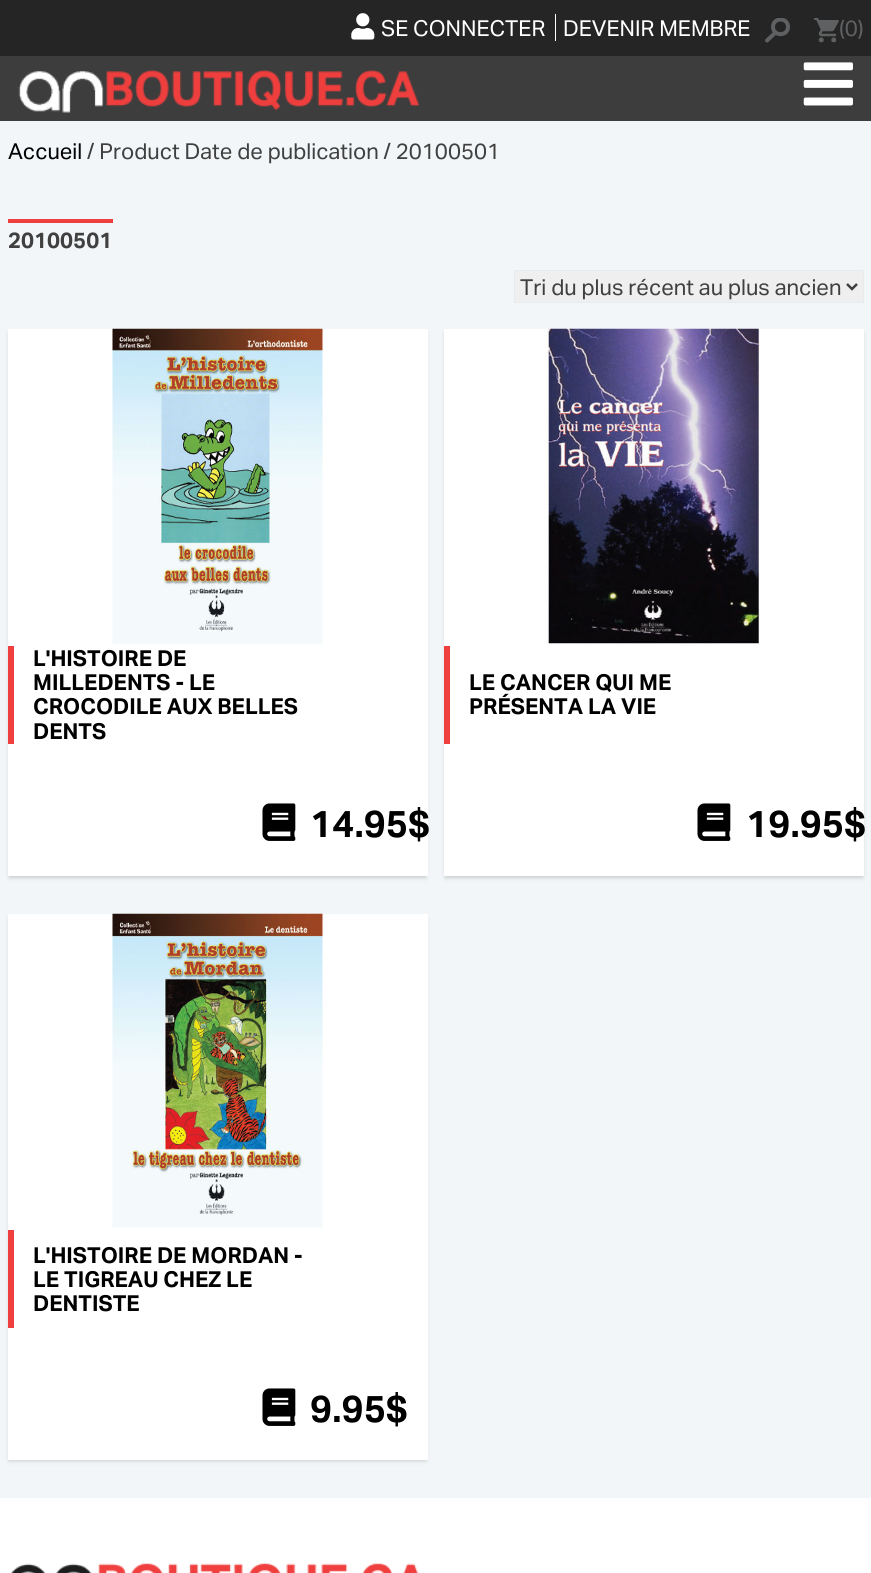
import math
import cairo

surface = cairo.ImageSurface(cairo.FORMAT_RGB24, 871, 1573)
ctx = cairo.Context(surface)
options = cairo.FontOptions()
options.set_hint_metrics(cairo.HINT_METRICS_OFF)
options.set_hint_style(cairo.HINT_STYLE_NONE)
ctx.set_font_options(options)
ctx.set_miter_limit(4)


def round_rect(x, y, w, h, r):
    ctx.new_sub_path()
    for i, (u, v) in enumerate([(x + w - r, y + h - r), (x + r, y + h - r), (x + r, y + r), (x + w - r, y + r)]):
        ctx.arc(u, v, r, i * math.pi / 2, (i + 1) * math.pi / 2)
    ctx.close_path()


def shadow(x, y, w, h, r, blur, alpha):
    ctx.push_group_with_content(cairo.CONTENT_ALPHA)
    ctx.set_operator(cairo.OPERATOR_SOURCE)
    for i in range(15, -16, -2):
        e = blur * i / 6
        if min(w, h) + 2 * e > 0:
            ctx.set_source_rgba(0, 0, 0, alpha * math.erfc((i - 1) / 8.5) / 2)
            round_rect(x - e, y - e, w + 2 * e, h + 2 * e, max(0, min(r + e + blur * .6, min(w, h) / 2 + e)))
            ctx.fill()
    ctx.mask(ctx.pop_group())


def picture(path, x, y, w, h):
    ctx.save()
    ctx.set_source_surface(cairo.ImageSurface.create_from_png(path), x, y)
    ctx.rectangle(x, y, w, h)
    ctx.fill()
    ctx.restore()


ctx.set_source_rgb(0.949, 0.961, 0.969)
ctx.paint()
ctx.set_source_rgb(0.145, 0.145, 0.145)
ctx.rectangle(0, 0, 871, 56)
ctx.fill()
ctx.set_source_rgb(1, 1, 1)
ctx.rectangle(555, 14, 1, 27)
ctx.fill()
picture("img1.png", 351, 13, 24, 27)
ctx.select_font_face("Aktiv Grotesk")
ctx.set_font_size(22)
ctx.move_to(381, 36)
ctx.show_text("SE CONNECTER")
ctx.move_to(563, 36)
ctx.show_text("DEVENIR MEMBRE")
ctx.save()
ctx.rectangle(765, 18, 25, 25)
ctx.clip()
ctx.new_path()
ctx.move_to(765, 17.5)
ctx.line_to(790, 17.5)
ctx.line_to(790, 42.5)
ctx.line_to(765, 42.5)
ctx.close_path()
ctx.clip()
ctx.new_path()
ctx.move_to(788, 27)
ctx.curve_to(788, 36.5, 773, 36.5, 773, 27)
ctx.curve_to(773, 17, 788, 17, 788, 27)
ctx.close_path()
ctx.set_source_rgb(0.373, 0.376, 0.384)
ctx.set_line_width(4)
ctx.stroke()
ctx.restore()
ctx.save()
ctx.new_path()
ctx.move_to(765, 17.5)
ctx.line_to(790, 17.5)
ctx.line_to(790, 42.5)
ctx.line_to(765, 42.5)
ctx.close_path()
ctx.clip()
ctx.new_path()
ctx.move_to(775.5, 32.5)
ctx.line_to(767, 40.5)
ctx.set_source_rgb(0.373, 0.376, 0.384)
ctx.set_line_width(4)
ctx.set_line_cap(cairo.LINE_CAP_ROUND)
ctx.set_line_join(cairo.LINE_JOIN_ROUND)
ctx.stroke()
ctx.restore()
picture("img2.png", 814, 18, 25, 25)
ctx.set_source_rgb(0.373, 0.376, 0.384)
ctx.move_to(839, 36)
ctx.show_text("(0)")
ctx.set_source_rgb(0.239, 0.239, 0.239)
ctx.rectangle(0, 56, 871, 65)
ctx.fill()
picture("img3.png", 18, 70, 401, 43)
picture("img4.png", 803, 62, 50, 44)
ctx.set_source_rgb(0, 0, 0)
ctx.move_to(8, 159)
ctx.show_text("Accueil")
ctx.set_source_rgb(0.251, 0.251, 0.251)
ctx.move_to(87, 159)
ctx.show_text("/ Product Date de publication / 20100501")
ctx.set_source_rgb(0.937, 0.247, 0.243)
ctx.rectangle(8, 219, 105, 4)
ctx.fill()
ctx.select_font_face("Aktiv Grotesk", cairo.FONT_SLANT_NORMAL, cairo.FONT_WEIGHT_BOLD)
ctx.set_source_rgb(0.251, 0.251, 0.251)
ctx.move_to(8, 248)
ctx.show_text("20100501")
ctx.set_source_rgb(0.937, 0.937, 0.937)
ctx.rectangle(514.5, 270.5, 349, 32)
ctx.fill_preserve()
ctx.set_source_rgb(0.91, 0.918, 0.929)
ctx.set_line_width(1)
ctx.stroke()
ctx.new_path()
ctx.move_to(847, 284)
ctx.line_to(852, 289)
ctx.line_to(857, 284)
ctx.set_source_rgb(0.251, 0.251, 0.251)
ctx.set_line_width(2.5)
ctx.stroke()
ctx.select_font_face("Aktiv Grotesk")
ctx.move_to(520, 295)
ctx.show_text("Tri du plus récent au plus ancien")
ctx.set_source_rgb(0.729, 0.737, 0.745)
shadow(9, 333, 417, 545, 0, 2, 0.7)
ctx.set_source_rgb(1, 1, 1)
ctx.rectangle(8, 329, 420, 547)
ctx.fill()
picture("img5.png", 112, 328, 211, 316)
ctx.set_source_rgb(0.937, 0.247, 0.243)
ctx.rectangle(8, 646, 6, 98)
ctx.fill()
ctx.select_font_face("Aktiv Grotesk", cairo.FONT_SLANT_NORMAL, cairo.FONT_WEIGHT_BOLD)
ctx.set_source_rgb(0, 0, 0)
ctx.move_to(33, 666)
ctx.show_text("L'HISTOIRE DE")
ctx.move_to(33, 690)
ctx.show_text("MILLEDENTS - LE")
ctx.move_to(33, 714)
ctx.show_text("CROCODILE AUX BELLES")
ctx.move_to(33, 739)
ctx.show_text("DENTS")
picture("img6.png", 262, 803, 34, 38)
ctx.set_font_size(37.5)
ctx.move_to(310, 837)
ctx.show_text("14.95$")
ctx.set_source_rgb(0.729, 0.737, 0.745)
shadow(445, 333, 418, 545, 0, 2, 0.7)
ctx.set_source_rgb(1, 1, 1)
ctx.rectangle(444, 329, 420, 547)
ctx.fill()
picture("img7.png", 544, 328, 216, 316)
ctx.set_source_rgb(0.937, 0.247, 0.243)
ctx.rectangle(444, 646, 6, 98)
ctx.fill()
ctx.set_font_size(22)
ctx.set_source_rgb(0, 0, 0)
ctx.move_to(469, 690)
ctx.show_text("LE CANCER QUI ME")
ctx.move_to(469, 714)
ctx.show_text("PRÉSENTA LA VIE")
picture("img6.png", 697, 803, 34, 38)
ctx.set_font_size(37.5)
ctx.move_to(746, 837)
ctx.show_text("19.95$")
ctx.set_source_rgb(0.729, 0.737, 0.745)
shadow(9, 918, 417, 543, 0, 2, 0.7)
ctx.set_source_rgb(1, 1, 1)
ctx.rectangle(8, 914, 420, 546)
ctx.fill()
picture("img8.png", 112, 913, 211, 315)
ctx.set_source_rgb(0.937, 0.247, 0.243)
ctx.rectangle(8, 1230, 6, 98)
ctx.fill()
ctx.set_font_size(22)
ctx.set_source_rgb(0, 0, 0)
ctx.move_to(33, 1263)
ctx.show_text("L'HISTOIRE DE MORDAN -")
ctx.move_to(33, 1287)
ctx.show_text("LE TIGREAU CHEZ LE")
ctx.move_to(33, 1311)
ctx.show_text("DENTISTE")
picture("img6.png", 262, 1388, 34, 38)
ctx.set_font_size(37.5)
ctx.move_to(310, 1422)
ctx.show_text("9.95$")
ctx.set_source_rgb(1, 1, 1)
ctx.rectangle(0, 1498, 871, 75)
ctx.fill()
picture("img9.png", 11, 1563, 407, 10)
surface.write_to_png("page.png")
